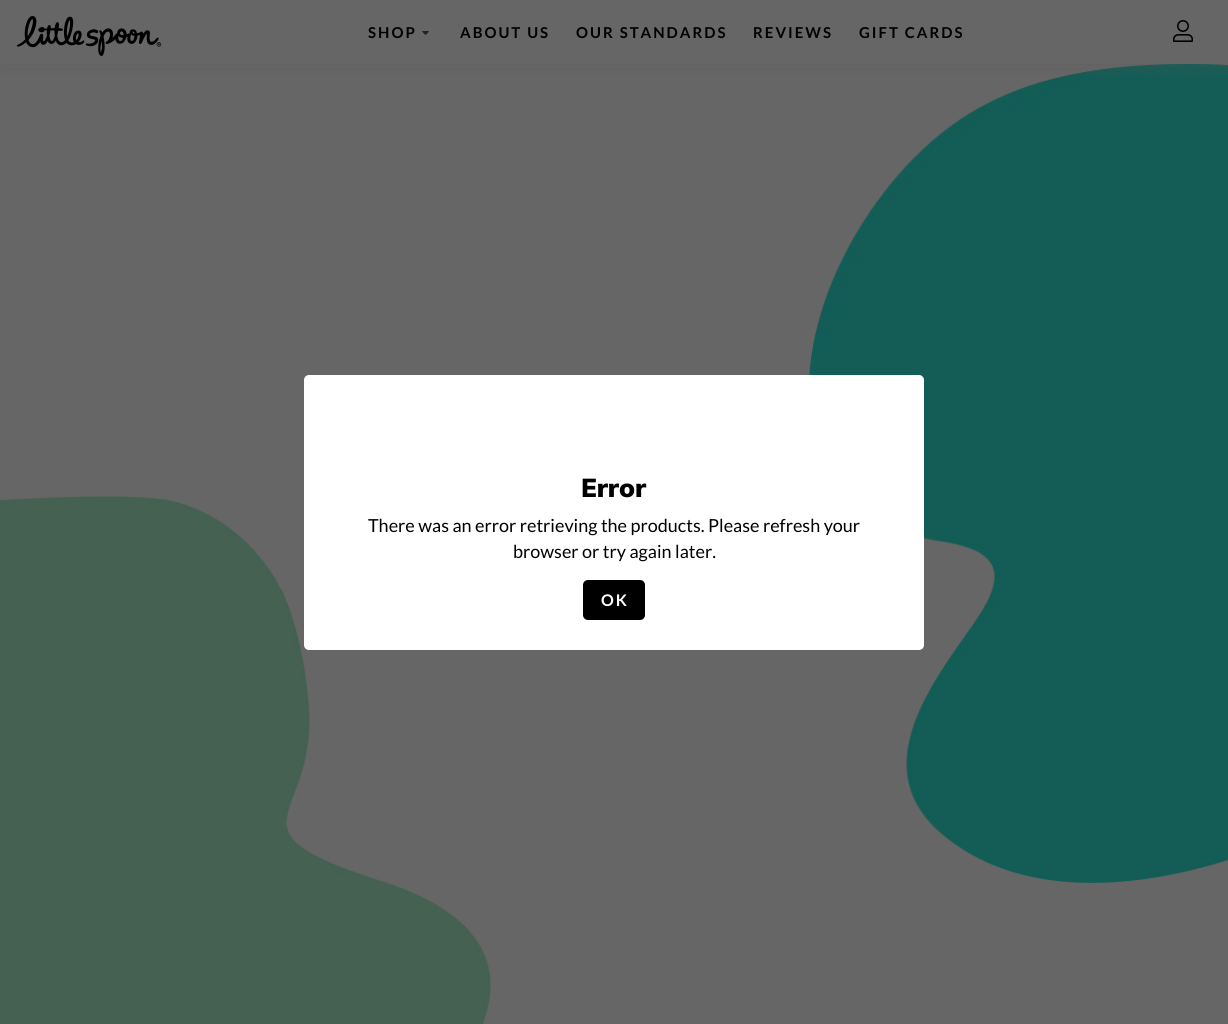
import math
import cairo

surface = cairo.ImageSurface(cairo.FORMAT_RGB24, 1228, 1024)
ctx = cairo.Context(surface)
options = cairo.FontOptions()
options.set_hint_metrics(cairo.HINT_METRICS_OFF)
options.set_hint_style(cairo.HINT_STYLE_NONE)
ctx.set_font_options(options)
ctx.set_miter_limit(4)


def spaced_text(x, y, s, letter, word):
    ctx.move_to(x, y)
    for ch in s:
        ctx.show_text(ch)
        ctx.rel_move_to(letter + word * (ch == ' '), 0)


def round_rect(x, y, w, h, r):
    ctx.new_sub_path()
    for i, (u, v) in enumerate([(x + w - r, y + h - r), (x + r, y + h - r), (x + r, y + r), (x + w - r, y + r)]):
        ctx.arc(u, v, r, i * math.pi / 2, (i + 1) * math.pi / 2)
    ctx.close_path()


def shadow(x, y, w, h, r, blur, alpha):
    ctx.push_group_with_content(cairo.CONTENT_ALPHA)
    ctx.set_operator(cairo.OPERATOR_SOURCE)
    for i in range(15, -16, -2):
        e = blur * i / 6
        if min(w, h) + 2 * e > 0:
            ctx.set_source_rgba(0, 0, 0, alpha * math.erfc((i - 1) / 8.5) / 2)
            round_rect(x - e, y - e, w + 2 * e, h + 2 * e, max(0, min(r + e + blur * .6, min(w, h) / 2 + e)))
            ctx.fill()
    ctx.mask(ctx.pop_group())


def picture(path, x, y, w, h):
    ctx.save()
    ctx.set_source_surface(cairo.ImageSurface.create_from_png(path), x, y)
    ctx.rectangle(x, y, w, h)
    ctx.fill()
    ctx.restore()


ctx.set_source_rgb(0.4, 0.4, 0.4)
ctx.paint()
picture("img5.png", 809, 64, 419, 819)
ctx.save()
ctx.rectangle(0, 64, 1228, 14)
ctx.clip()
ctx.set_source_rgb(0.337, 0.337, 0.337)
shadow(-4, 0, 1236, 72, 0, 4.5, 0.2)
ctx.restore()
picture("img1.png", 16, 16, 146, 40)
ctx.select_font_face("Lato", cairo.FONT_SLANT_NORMAL, cairo.FONT_WEIGHT_BOLD)
ctx.set_font_size(15)
ctx.set_source_rgb(0, 0, 0)
spaced_text(368, 38, "SHOP", 2, 0)
picture("img2.png", 422, 31, 7, 4)
spaced_text(460, 38, "ABOUT US", 2, 0)
spaced_text(576, 38, "OUR STANDARDS", 2, 0)
spaced_text(753, 38, "REVIEWS", 2, 0)
spaced_text(859, 38, "GIFT CARDS", 2, 0)
picture("img3.png", 1173, 20, 20, 22)
picture("img4.png", 0, 496, 491, 528)
ctx.set_source_rgb(1, 1, 1)
round_rect(304, 375, 620, 275, 5)
ctx.fill()
ctx.select_font_face("Mulish Black")
ctx.set_font_size(26)
ctx.set_source_rgb(0, 0, 0)
ctx.move_to(581, 497)
ctx.show_text("Error")
ctx.select_font_face("Lato")
ctx.set_font_size(18)
ctx.move_to(368, 532)
ctx.show_text("There was an error retrieving the products. Please refresh your")
ctx.move_to(513, 558)
ctx.show_text("browser or try again later.")
round_rect(583, 580, 62, 40, 5)
ctx.fill()
ctx.select_font_face("Lato", cairo.FONT_SLANT_NORMAL, cairo.FONT_WEIGHT_BOLD)
ctx.set_font_size(16)
ctx.set_source_rgb(1, 1, 1)
spaced_text(601, 606, "OK", 2, 0)
surface.write_to_png("page.png")
